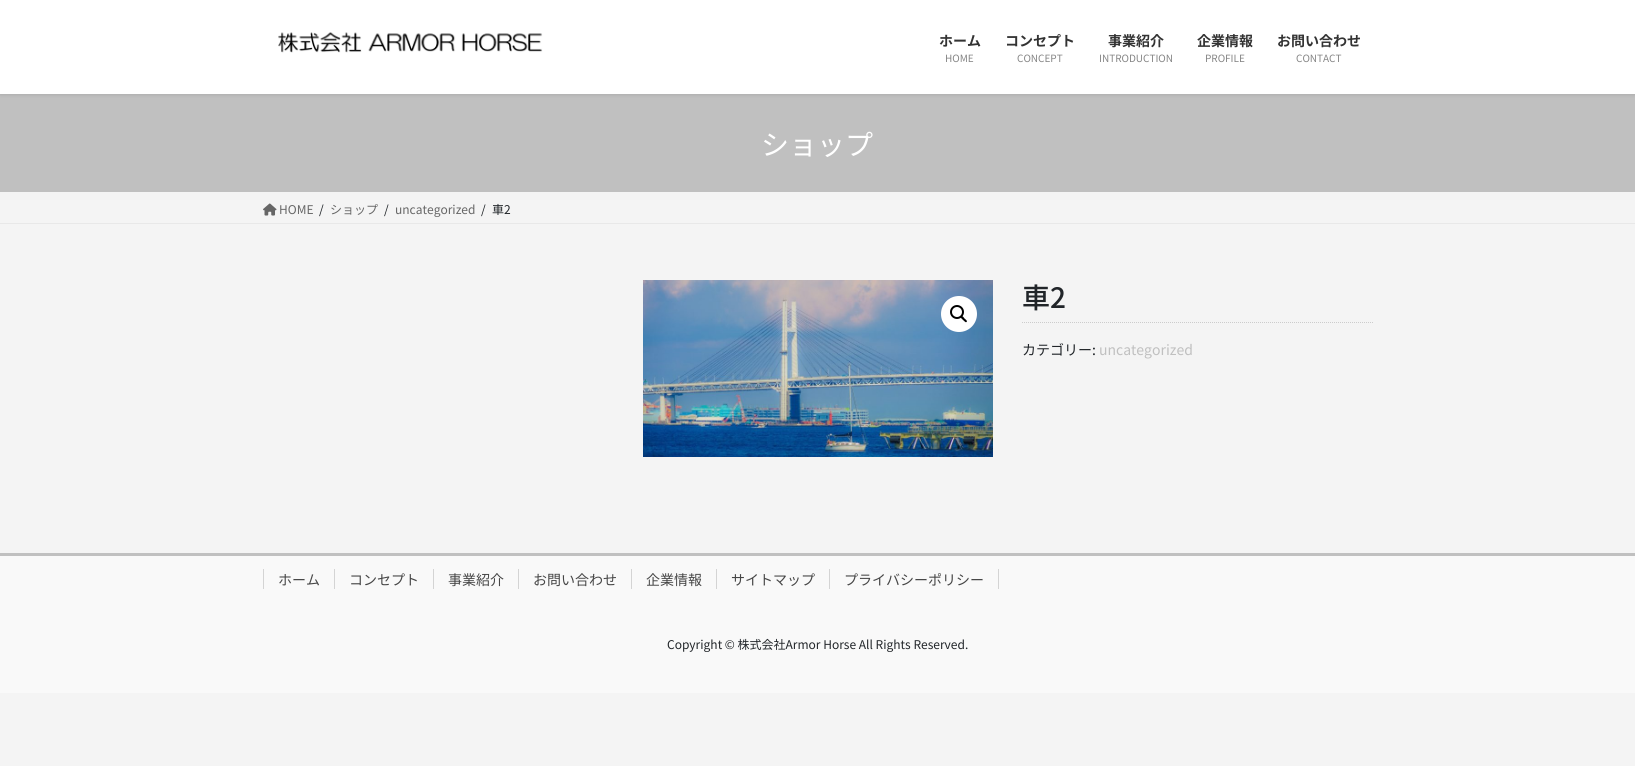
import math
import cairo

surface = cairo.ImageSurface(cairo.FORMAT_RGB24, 1635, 766)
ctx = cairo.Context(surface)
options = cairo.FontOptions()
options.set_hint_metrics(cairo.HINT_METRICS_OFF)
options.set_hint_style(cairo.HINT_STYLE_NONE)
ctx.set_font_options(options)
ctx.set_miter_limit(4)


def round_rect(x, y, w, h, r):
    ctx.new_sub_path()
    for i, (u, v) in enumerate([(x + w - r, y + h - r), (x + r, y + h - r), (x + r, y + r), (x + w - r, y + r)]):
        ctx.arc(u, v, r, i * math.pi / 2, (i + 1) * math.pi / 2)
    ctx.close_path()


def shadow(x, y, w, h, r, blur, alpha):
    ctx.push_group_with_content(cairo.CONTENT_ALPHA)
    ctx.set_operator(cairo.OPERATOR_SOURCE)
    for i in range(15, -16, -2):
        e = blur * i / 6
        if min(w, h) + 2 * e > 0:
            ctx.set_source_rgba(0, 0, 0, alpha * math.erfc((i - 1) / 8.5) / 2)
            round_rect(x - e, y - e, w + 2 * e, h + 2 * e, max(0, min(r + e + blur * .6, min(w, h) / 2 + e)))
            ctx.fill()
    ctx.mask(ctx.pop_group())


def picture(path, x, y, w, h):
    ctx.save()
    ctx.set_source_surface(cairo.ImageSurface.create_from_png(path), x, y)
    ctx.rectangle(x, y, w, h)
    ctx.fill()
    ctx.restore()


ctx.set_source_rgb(0.957, 0.957, 0.957)
ctx.paint()
ctx.set_source_rgb(0.753, 0.753, 0.753)
ctx.rectangle(0, 94, 1635, 98)
ctx.fill()
ctx.set_source_rgb(0, 0, 0)
shadow(0, 1, 1635, 94, 0, 1.5, 0.1)
ctx.set_source_rgb(1, 1, 1)
ctx.rectangle(0, 0, 1635, 94)
ctx.fill()
picture("img1.png", 278, 32, 265, 21)
ctx.select_font_face("Noto Sans JP", cairo.FONT_SLANT_NORMAL, cairo.FONT_WEIGHT_BOLD)
ctx.set_font_size(14)
ctx.set_source_rgb(0.2, 0.2, 0.2)
ctx.move_to(939, 46)
ctx.show_text("ホーム")
ctx.select_font_face("Noto Sans JP")
ctx.set_font_size(10)
ctx.set_source_rgb(0.522, 0.522, 0.522)
ctx.move_to(945, 62)
ctx.show_text("HOME")
ctx.select_font_face("Noto Sans JP", cairo.FONT_SLANT_NORMAL, cairo.FONT_WEIGHT_BOLD)
ctx.set_font_size(14)
ctx.set_source_rgb(0.2, 0.2, 0.2)
ctx.move_to(1005, 46)
ctx.show_text("コンセプト")
ctx.select_font_face("Noto Sans JP")
ctx.set_font_size(10)
ctx.set_source_rgb(0.522, 0.522, 0.522)
ctx.move_to(1017, 62)
ctx.show_text("CONCEPT")
ctx.select_font_face("Noto Sans JP", cairo.FONT_SLANT_NORMAL, cairo.FONT_WEIGHT_BOLD)
ctx.set_font_size(14)
ctx.set_source_rgb(0.2, 0.2, 0.2)
ctx.move_to(1108, 46)
ctx.show_text("事業紹介")
ctx.select_font_face("Noto Sans JP")
ctx.set_font_size(10)
ctx.set_source_rgb(0.522, 0.522, 0.522)
ctx.move_to(1099, 62)
ctx.show_text("INTRODUCTION")
ctx.select_font_face("Noto Sans JP", cairo.FONT_SLANT_NORMAL, cairo.FONT_WEIGHT_BOLD)
ctx.set_font_size(14)
ctx.set_source_rgb(0.2, 0.2, 0.2)
ctx.move_to(1197, 46)
ctx.show_text("企業情報")
ctx.select_font_face("Noto Sans JP")
ctx.set_font_size(10)
ctx.set_source_rgb(0.522, 0.522, 0.522)
ctx.move_to(1205, 62)
ctx.show_text("PROFILE")
ctx.select_font_face("Noto Sans JP", cairo.FONT_SLANT_NORMAL, cairo.FONT_WEIGHT_BOLD)
ctx.set_font_size(14)
ctx.set_source_rgb(0.2, 0.2, 0.2)
ctx.move_to(1277, 46)
ctx.show_text("お問い合わせ")
ctx.select_font_face("Noto Sans JP")
ctx.set_font_size(10)
ctx.set_source_rgb(0.522, 0.522, 0.522)
ctx.move_to(1296, 62)
ctx.show_text("CONTACT")
ctx.set_font_size(28)
ctx.set_source_rgb(1, 1, 1)
ctx.move_to(761, 155)
ctx.show_text("ショップ")
ctx.set_source_rgb(0.91, 0.91, 0.91)
ctx.rectangle(0, 223, 1635, 1)
ctx.fill()
picture("img2.png", 263, 203, 14, 13)
ctx.set_font_size(12)
ctx.set_source_rgb(0.4, 0.4, 0.4)
ctx.move_to(279, 214)
ctx.show_text("HOME")
ctx.set_source_rgb(0.129, 0.145, 0.161)
ctx.move_to(319, 214)
ctx.show_text("/")
ctx.set_source_rgb(0.4, 0.4, 0.4)
ctx.move_to(330, 214)
ctx.show_text("ショップ")
ctx.set_source_rgb(0.129, 0.145, 0.161)
ctx.move_to(384, 214)
ctx.show_text("/")
ctx.set_source_rgb(0.4, 0.4, 0.4)
ctx.move_to(395, 214)
ctx.show_text("uncategorized")
ctx.set_source_rgb(0.129, 0.145, 0.161)
ctx.move_to(481, 214)
ctx.show_text("/")
ctx.move_to(492, 214)
ctx.show_text("車2")
picture("img3.png", 643, 280, 350, 177)
ctx.set_source_rgb(1, 1, 1)
ctx.arc(959, 314, 18, 0, 2 * math.pi)
ctx.fill()
ctx.arc(957, 312, 6, 0, 2 * math.pi)
ctx.set_source_rgb(0, 0, 0)
ctx.stroke()
ctx.new_path()
ctx.move_to(961, 316.5)
ctx.curve_to(962.5, 315, 964, 318, 964.5, 318.5)
ctx.curve_to(965, 319, 968, 321, 966.5, 322)
ctx.curve_to(965.5, 323, 964, 320.5, 963, 320)
ctx.curve_to(962.5, 319.5, 960, 317.5, 961, 316.5)
ctx.close_path()
ctx.fill()
ctx.new_path()
ctx.move_to(1022, 322.5)
ctx.line_to(1373, 322.5)
ctx.set_source_rgb(0.8, 0.8, 0.8)
ctx.set_line_width(1)
ctx.set_dash([1, 1])
ctx.stroke()
ctx.select_font_face("Noto Sans JP Medium")
ctx.set_font_size(28)
ctx.set_source_rgb(0.129, 0.145, 0.161)
ctx.move_to(1022, 308)
ctx.show_text("車2")
ctx.select_font_face("Noto Sans JP")
ctx.set_font_size(14)
ctx.move_to(1022, 355)
ctx.show_text("カテゴリー:")
ctx.set_source_rgb(0.753, 0.753, 0.753)
ctx.move_to(1099, 355)
ctx.show_text("uncategorized")
ctx.set_source_rgb(0.976, 0.976, 0.976)
ctx.rectangle(0, 556, 1635, 137)
ctx.fill()
ctx.set_source_rgb(0.753, 0.753, 0.753)
ctx.rectangle(0, 553, 1635, 3)
ctx.fill()
ctx.set_source_rgb(0.275, 0.275, 0.275)
ctx.move_to(278, 585)
ctx.show_text("ホーム")
ctx.set_source_rgb(0.831, 0.831, 0.831)
ctx.rectangle(263, 569, 1, 20)
ctx.fill()
ctx.set_source_rgb(0.275, 0.275, 0.275)
ctx.move_to(349, 585)
ctx.show_text("コンセプト")
ctx.set_source_rgb(0.831, 0.831, 0.831)
ctx.rectangle(334, 569, 1, 20)
ctx.fill()
ctx.set_source_rgb(0.275, 0.275, 0.275)
ctx.move_to(448, 585)
ctx.show_text("事業紹介")
ctx.set_source_rgb(0.831, 0.831, 0.831)
ctx.rectangle(433, 569, 1, 20)
ctx.fill()
ctx.set_source_rgb(0.275, 0.275, 0.275)
ctx.move_to(533, 585)
ctx.show_text("お問い合わせ")
ctx.set_source_rgb(0.831, 0.831, 0.831)
ctx.rectangle(518, 569, 1, 20)
ctx.fill()
ctx.set_source_rgb(0.275, 0.275, 0.275)
ctx.move_to(646, 585)
ctx.show_text("企業情報")
ctx.set_source_rgb(0.831, 0.831, 0.831)
ctx.rectangle(631, 569, 1, 20)
ctx.fill()
ctx.set_source_rgb(0.275, 0.275, 0.275)
ctx.move_to(731, 585)
ctx.show_text("サイトマップ")
ctx.set_source_rgb(0.831, 0.831, 0.831)
ctx.rectangle(716, 569, 1, 20)
ctx.fill()
ctx.set_source_rgb(0.275, 0.275, 0.275)
ctx.move_to(844, 585)
ctx.show_text("プライバシーポリシー")
ctx.set_source_rgb(0.831, 0.831, 0.831)
ctx.rectangle(998, 569, 1, 20)
ctx.fill()
ctx.rectangle(829, 569, 1, 20)
ctx.fill()
ctx.set_font_size(12)
ctx.set_source_rgb(0.129, 0.145, 0.161)
ctx.move_to(667, 649)
ctx.show_text("Copyright © 株式会社Armor Horse All Rights Reserved.")
surface.write_to_png("page.png")
